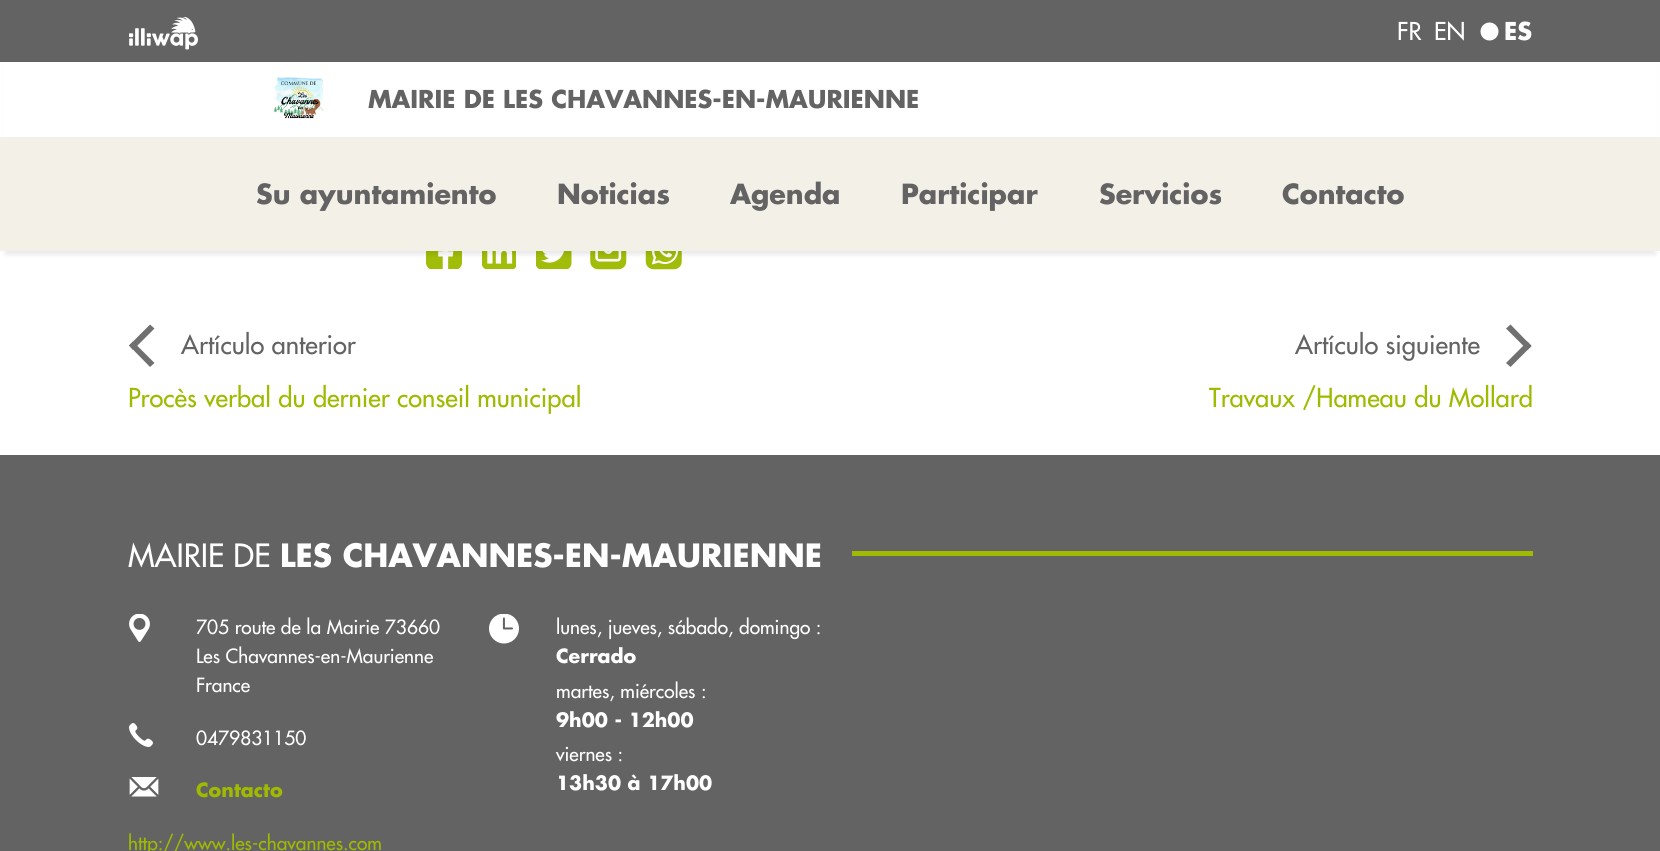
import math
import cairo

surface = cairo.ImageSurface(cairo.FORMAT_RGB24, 1660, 851)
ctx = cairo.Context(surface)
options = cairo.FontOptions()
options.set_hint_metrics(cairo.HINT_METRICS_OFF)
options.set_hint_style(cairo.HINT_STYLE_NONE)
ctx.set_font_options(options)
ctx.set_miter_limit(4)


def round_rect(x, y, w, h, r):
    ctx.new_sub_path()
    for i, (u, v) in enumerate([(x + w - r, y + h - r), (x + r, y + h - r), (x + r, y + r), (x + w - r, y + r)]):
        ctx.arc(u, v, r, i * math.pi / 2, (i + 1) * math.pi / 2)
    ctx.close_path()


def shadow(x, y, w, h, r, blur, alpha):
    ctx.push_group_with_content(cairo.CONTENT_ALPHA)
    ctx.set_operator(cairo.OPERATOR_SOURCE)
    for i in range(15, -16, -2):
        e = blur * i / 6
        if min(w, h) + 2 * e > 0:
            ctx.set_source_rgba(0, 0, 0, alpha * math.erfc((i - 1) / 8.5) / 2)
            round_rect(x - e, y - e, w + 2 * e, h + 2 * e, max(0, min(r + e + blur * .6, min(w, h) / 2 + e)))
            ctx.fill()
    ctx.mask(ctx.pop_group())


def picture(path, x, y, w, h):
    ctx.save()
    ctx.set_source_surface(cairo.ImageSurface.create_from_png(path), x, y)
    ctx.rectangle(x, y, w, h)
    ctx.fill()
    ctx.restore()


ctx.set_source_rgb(1, 1, 1)
ctx.paint()
picture("img3.png", 426, 251, 36, 18)
picture("img4.png", 482, 251, 34, 18)
picture("img5.png", 536, 251, 36, 18)
picture("img6.png", 590, 251, 37, 19)
picture("img7.png", 645, 251, 37, 19)
ctx.set_source_rgb(0, 0, 0)
shadow(5, 14, 1651, 241, 0, 2, 0.08)
ctx.set_source_rgb(1, 1, 1)
ctx.rectangle(3, 62, 1655, 75)
ctx.fill()
ctx.set_source_rgb(0.392, 0.388, 0.388)
ctx.rectangle(0, 0, 1660, 62)
ctx.fill()
picture("img1.png", 129, 17, 69, 33)
ctx.select_font_face("Futura")
ctx.set_font_size(24)
ctx.set_source_rgb(1, 1, 1)
ctx.move_to(1397, 40)
ctx.show_text("FR")
ctx.move_to(1434, 40)
ctx.show_text("EN")
ctx.new_path()
ctx.arc(1489.5, 31.5, 9, 0, 2 * math.pi)
ctx.fill()
ctx.select_font_face("Futura", cairo.FONT_SLANT_NORMAL, cairo.FONT_WEIGHT_BOLD)
ctx.move_to(1504, 40)
ctx.show_text("ES")
picture("img2.png", 273, 77, 51, 42)
ctx.set_source_rgb(0.392, 0.388, 0.388)
ctx.move_to(368, 108)
ctx.show_text("MAIRIE DE LES CHAVANNES-EN-MAURIENNE")
ctx.set_source_rgb(0.953, 0.941, 0.91)
ctx.rectangle(0, 137, 1660, 114)
ctx.fill()
ctx.set_font_size(27)
ctx.set_source_rgb(0.392, 0.388, 0.388)
ctx.move_to(256, 204)
ctx.show_text("Su ayuntamiento")
ctx.move_to(557, 204)
ctx.show_text("Noticias")
ctx.move_to(730, 204)
ctx.show_text("Agenda")
ctx.move_to(901, 204)
ctx.show_text("Participar")
ctx.move_to(1099, 204)
ctx.show_text("Servicios")
ctx.move_to(1282, 204)
ctx.show_text("Contacto")
ctx.set_source_rgb(0.439, 0.439, 0.439)
ctx.new_path()
ctx.move_to(150, 367)
ctx.line_to(129, 345.5)
ctx.line_to(133, 341.5)
ctx.line_to(154.5, 363)
ctx.close_path()
ctx.fill()
ctx.new_path()
ctx.move_to(129, 345.5)
ctx.line_to(150, 324.5)
ctx.line_to(154.5, 328.5)
ctx.line_to(133, 350)
ctx.close_path()
ctx.fill()
ctx.select_font_face("Futura")
ctx.set_font_size(25.5)
ctx.set_source_rgb(0.392, 0.388, 0.388)
ctx.move_to(181, 354)
ctx.show_text("Artículo anterior")
ctx.set_source_rgb(0.439, 0.439, 0.439)
ctx.new_path()
ctx.move_to(1510.5, 324.5)
ctx.line_to(1531.5, 346)
ctx.line_to(1527.5, 350)
ctx.line_to(1506, 328.5)
ctx.close_path()
ctx.fill()
ctx.new_path()
ctx.move_to(1531.5, 346)
ctx.line_to(1510.5, 367)
ctx.line_to(1506, 363)
ctx.line_to(1527.5, 341.5)
ctx.close_path()
ctx.fill()
ctx.set_source_rgb(0.392, 0.388, 0.388)
ctx.move_to(1295, 354)
ctx.show_text("Artículo siguiente")
ctx.set_source_rgb(0.624, 0.729, 0)
ctx.move_to(128, 407)
ctx.show_text("Procès verbal du dernier conseil municipal")
ctx.move_to(1209, 407)
ctx.show_text("Travaux /Hameau du Mollard")
ctx.set_source_rgb(0.392, 0.388, 0.388)
ctx.rectangle(0, 455, 1660, 396)
ctx.fill()
ctx.set_source_rgb(0.624, 0.729, 0)
ctx.rectangle(852, 551, 681, 5)
ctx.fill()
ctx.set_font_size(31.25)
ctx.set_source_rgb(1, 1, 1)
ctx.move_to(128, 567)
ctx.show_text("MAIRIE DE")
ctx.select_font_face("Futura", cairo.FONT_SLANT_NORMAL, cairo.FONT_WEIGHT_BOLD)
ctx.move_to(280, 567)
ctx.show_text("LES CHAVANNES-EN-MAURIENNE")
picture("img8.png", 129, 614, 21, 28)
ctx.select_font_face("Futura")
ctx.set_font_size(19.1)
ctx.move_to(196, 634)
ctx.show_text("705 route de la Mairie 73660")
ctx.move_to(196, 663)
ctx.show_text("Les Chavannes-en-Maurienne")
ctx.move_to(196, 692)
ctx.show_text("France")
picture("img9.png", 129, 723, 24, 24)
ctx.move_to(196, 745)
ctx.show_text("0479831150")
picture("img10.png", 129, 777, 30, 20)
ctx.select_font_face("Futura", cairo.FONT_SLANT_NORMAL, cairo.FONT_WEIGHT_BOLD)
ctx.set_source_rgb(0.624, 0.729, 0)
ctx.move_to(196, 797)
ctx.show_text("Contacto")
ctx.select_font_face("Futura")
ctx.move_to(128, 850)
ctx.show_text("http://www.les-chavannes.com")
picture("img11.png", 489, 614, 30, 30)
ctx.set_source_rgb(1, 1, 1)
ctx.move_to(556, 634)
ctx.show_text("lunes, jueves, sábado, domingo :")
ctx.select_font_face("Futura", cairo.FONT_SLANT_NORMAL, cairo.FONT_WEIGHT_BOLD)
ctx.move_to(556, 663)
ctx.show_text("Cerrado")
ctx.select_font_face("Futura")
ctx.move_to(556, 698)
ctx.show_text("martes, miércoles :")
ctx.select_font_face("Futura", cairo.FONT_SLANT_NORMAL, cairo.FONT_WEIGHT_BOLD)
ctx.move_to(556, 727)
ctx.show_text("9h00 - 12h00")
ctx.select_font_face("Futura")
ctx.move_to(556, 761)
ctx.show_text("viernes :")
ctx.select_font_face("Futura", cairo.FONT_SLANT_NORMAL, cairo.FONT_WEIGHT_BOLD)
ctx.move_to(556, 790)
ctx.show_text("13h30 à 17h00")
surface.write_to_png("page.png")
